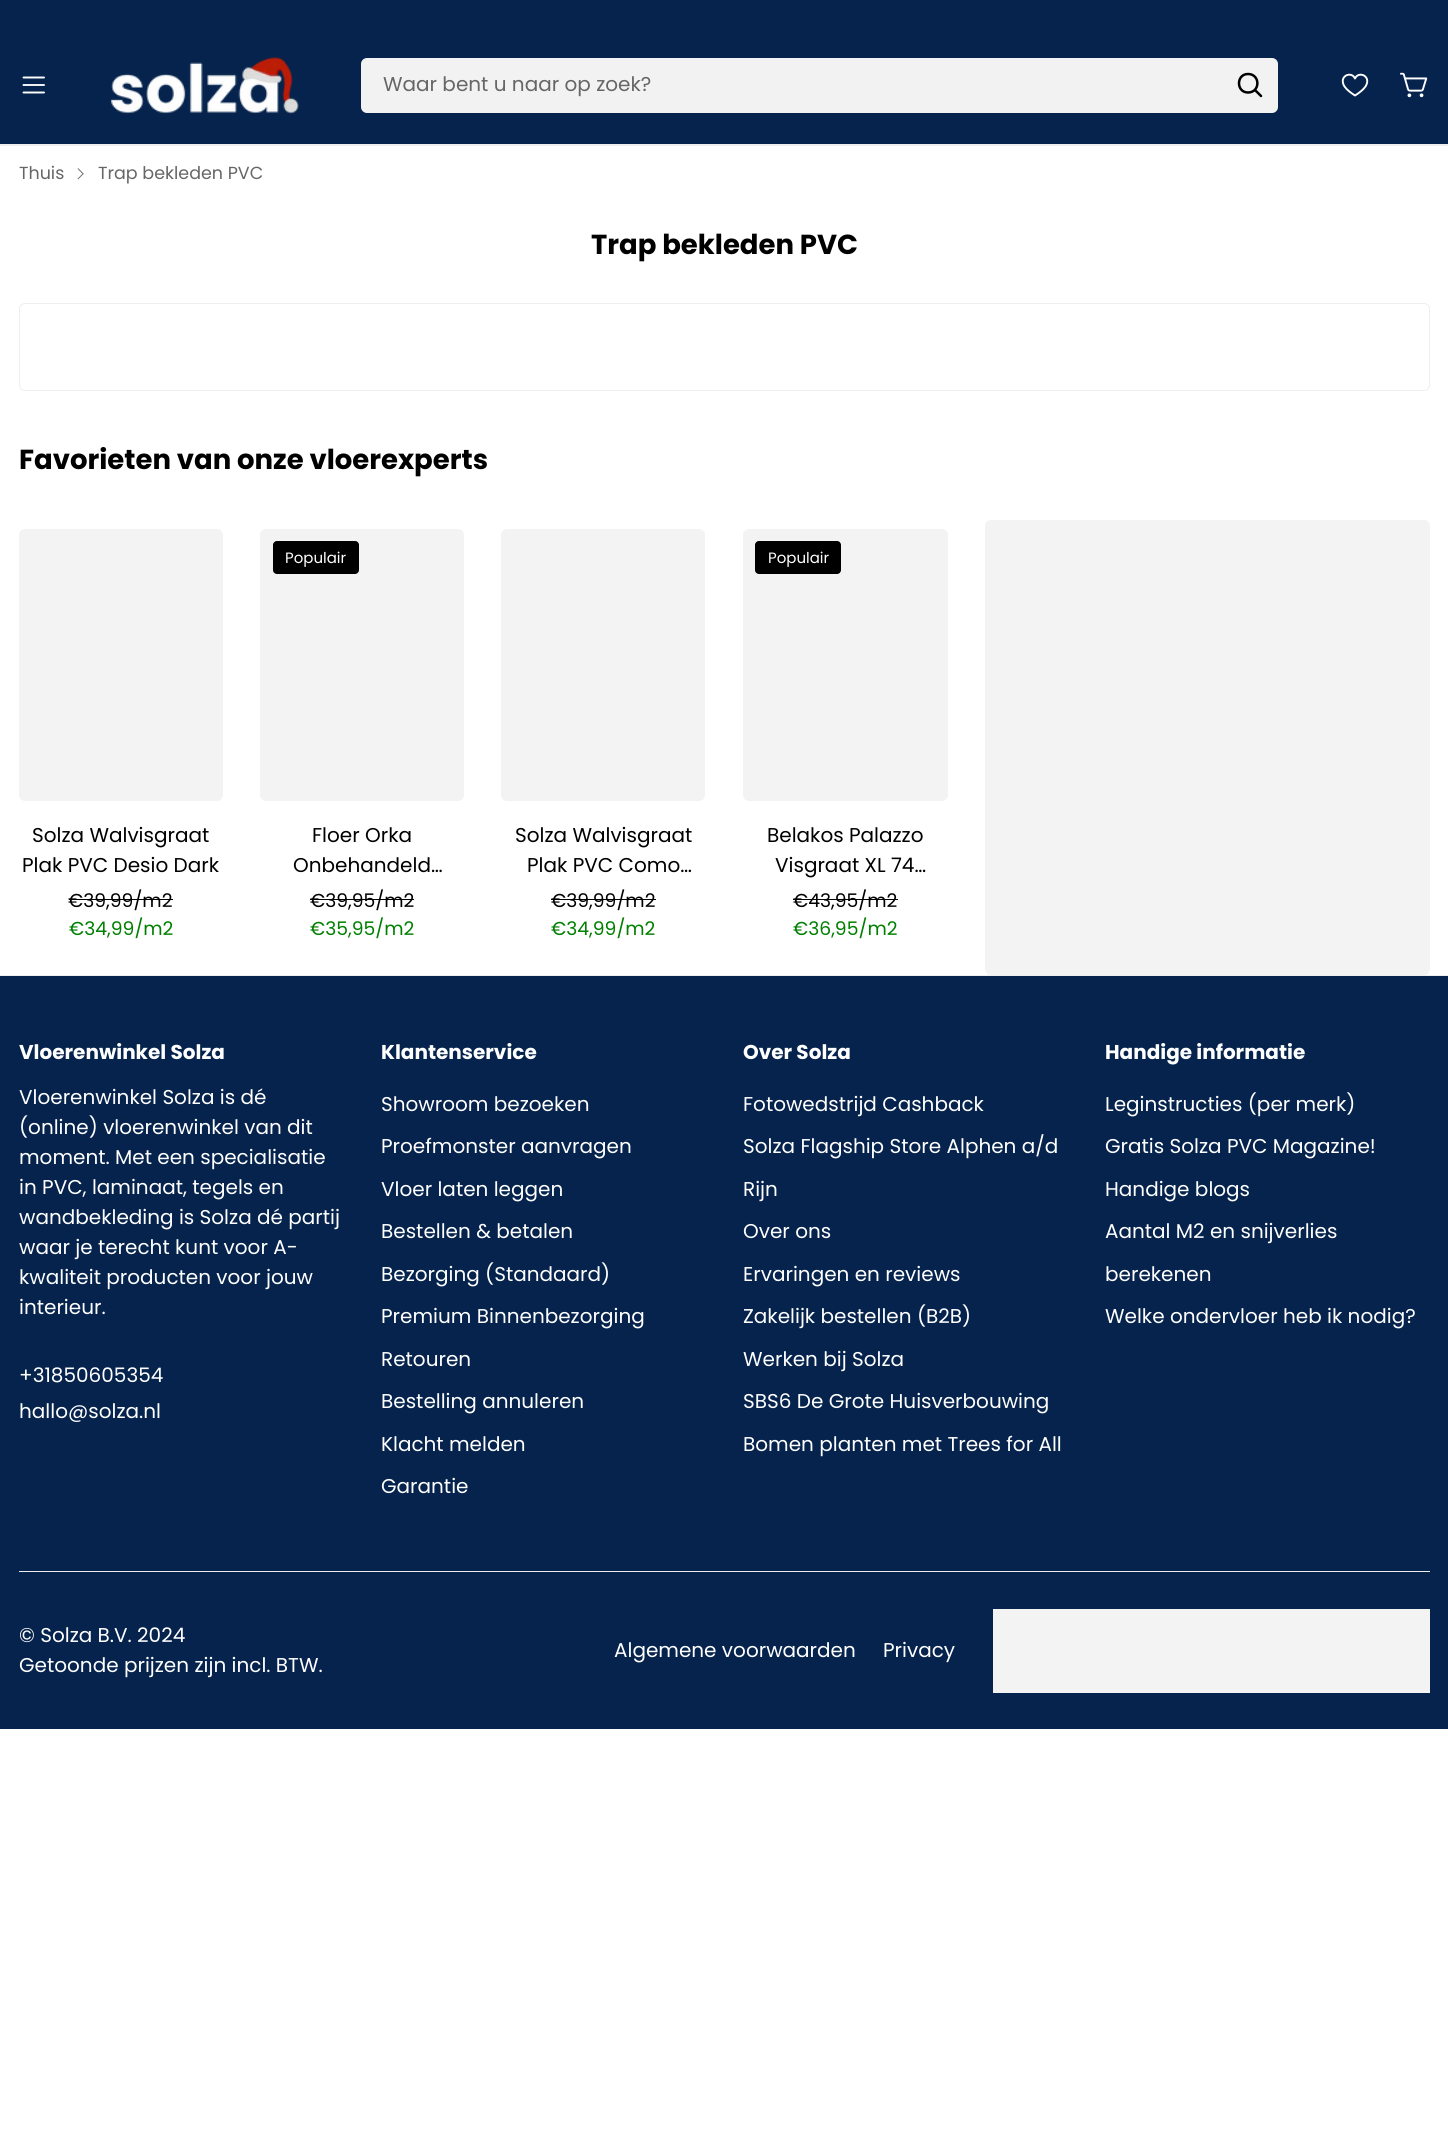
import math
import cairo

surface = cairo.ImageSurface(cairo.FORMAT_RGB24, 1448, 2139)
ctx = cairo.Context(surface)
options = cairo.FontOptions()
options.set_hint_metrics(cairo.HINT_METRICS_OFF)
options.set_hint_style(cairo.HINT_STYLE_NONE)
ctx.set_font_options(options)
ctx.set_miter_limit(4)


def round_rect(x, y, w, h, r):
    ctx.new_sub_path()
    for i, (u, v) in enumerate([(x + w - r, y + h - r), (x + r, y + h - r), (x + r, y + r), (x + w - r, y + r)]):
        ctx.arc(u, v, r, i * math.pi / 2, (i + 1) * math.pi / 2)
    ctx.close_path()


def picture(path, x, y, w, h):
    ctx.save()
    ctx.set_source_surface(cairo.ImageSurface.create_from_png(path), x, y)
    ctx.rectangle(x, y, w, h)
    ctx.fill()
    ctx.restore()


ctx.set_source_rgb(1, 1, 1)
ctx.paint()
ctx.set_source_rgb(0.933, 0.933, 0.933)
ctx.rectangle(0, 144, 1448, 2)
ctx.fill()
ctx.set_source_rgb(0.02, 0.137, 0.298)
ctx.rectangle(0, 0, 1448, 144)
ctx.fill()
ctx.new_path()
ctx.move_to(23.5, 85)
ctx.line_to(44, 85)
ctx.move_to(23.5, 77.5)
ctx.line_to(44, 77.5)
ctx.move_to(23.5, 92.5)
ctx.line_to(44, 92.5)
ctx.set_source_rgb(1, 1, 1)
ctx.set_line_width(1.9)
ctx.set_line_cap(cairo.LINE_CAP_ROUND)
ctx.set_line_join(cairo.LINE_JOIN_ROUND)
ctx.stroke()
picture("img1.png", 111, 57, 188, 57)
ctx.set_source_rgb(0.949, 0.949, 0.949)
round_rect(361, 58, 917, 55, 6)
ctx.fill()
ctx.select_font_face("Poppins")
ctx.set_font_size(20)
ctx.set_source_rgb(0.4, 0.4, 0.4)
ctx.move_to(383, 91)
ctx.show_text("Waar bent u naar op zoek?")
ctx.new_path()
ctx.move_to(1248, 92.5)
ctx.curve_to(1260.5, 92.5, 1260.5, 74, 1248, 74)
ctx.curve_to(1236, 74, 1236, 92.5, 1248, 92.5)
ctx.close_path()
ctx.move_to(1255, 90)
ctx.line_to(1261, 96)
ctx.set_source_rgb(0, 0, 0)
ctx.set_line_width(2.5)
ctx.stroke()
ctx.new_path()
ctx.move_to(1355, 95.5)
ctx.curve_to(1351, 93, 1347, 90, 1344.5, 86.5)
ctx.curve_to(1338, 76, 1351.5, 70.5, 1355, 78.5)
ctx.curve_to(1358.5, 70.5, 1372, 76, 1365.5, 86.5)
ctx.curve_to(1363, 90, 1359, 93, 1355, 95.5)
ctx.close_path()
ctx.set_source_rgb(1, 1, 1)
ctx.set_line_width(1.9)
ctx.stroke()
picture("img2.png", 1400, 72, 28, 26)
ctx.set_font_size(17.5)
ctx.set_source_rgb(0.4, 0.4, 0.4)
ctx.move_to(19, 179)
ctx.show_text("Thuis")
picture("img3.png", 77, 168, 7, 12)
ctx.move_to(98, 179)
ctx.show_text("Trap bekleden PVC")
ctx.select_font_face("Poppins", cairo.FONT_SLANT_NORMAL, cairo.FONT_WEIGHT_BOLD)
ctx.set_font_size(27.5)
ctx.set_source_rgb(0, 0, 0)
ctx.move_to(591, 254)
ctx.show_text("Trap bekleden PVC")
round_rect(19.5, 303.5, 1410, 87, 5.5)
ctx.set_source_rgb(0.933, 0.933, 0.933)
ctx.set_line_width(1)
ctx.set_line_cap(cairo.LINE_CAP_BUTT)
ctx.set_line_join(cairo.LINE_JOIN_MITER)
ctx.stroke()
ctx.set_source_rgb(0, 0, 0)
ctx.move_to(19, 469)
ctx.show_text("Favorieten van onze vloerexperts")
ctx.set_source_rgb(0.953, 0.953, 0.953)
round_rect(19, 529, 204, 272, 6)
ctx.fill()
ctx.select_font_face("Poppins")
ctx.set_font_size(20)
ctx.set_source_rgb(0, 0, 0)
ctx.move_to(32, 842)
ctx.show_text("Solza Walvisgraat")
ctx.move_to(22, 872)
ctx.show_text("Plak PVC Desio Dark")
ctx.set_font_size(18.75)
ctx.move_to(68, 907)
ctx.show_text("€39,99/m2")
ctx.rectangle(69, 899, 104, 1)
ctx.fill()
ctx.set_source_rgb(0, 0.502, 0)
ctx.move_to(69, 935)
ctx.show_text("€34,99/m2")
ctx.set_source_rgb(0.953, 0.953, 0.953)
round_rect(260, 529, 204, 272, 6)
ctx.fill()
ctx.set_source_rgb(0, 0, 0)
round_rect(273, 541, 86, 33, 4)
ctx.fill()
ctx.set_font_size(15)
ctx.set_source_rgb(1, 1, 1)
ctx.move_to(285, 563)
ctx.show_text("Populair")
ctx.set_font_size(20)
ctx.set_source_rgb(0, 0, 0)
ctx.move_to(312, 842)
ctx.show_text("Floer Orka")
ctx.move_to(293, 872)
ctx.show_text("Onbehandeld…")
ctx.set_font_size(18.75)
ctx.move_to(310, 907)
ctx.show_text("€39,95/m2")
ctx.rectangle(310, 899, 104, 1)
ctx.fill()
ctx.set_source_rgb(0, 0.502, 0)
ctx.move_to(310, 935)
ctx.show_text("€35,95/m2")
ctx.set_source_rgb(0.953, 0.953, 0.953)
round_rect(501, 529, 204, 272, 6)
ctx.fill()
ctx.set_font_size(20)
ctx.set_source_rgb(0, 0, 0)
ctx.move_to(515, 842)
ctx.show_text("Solza Walvisgraat")
ctx.move_to(527, 872)
ctx.show_text("Plak PVC Como…")
ctx.set_font_size(18.75)
ctx.move_to(551, 907)
ctx.show_text("€39,99/m2")
ctx.rectangle(551, 899, 105, 1)
ctx.fill()
ctx.set_source_rgb(0, 0.502, 0)
ctx.move_to(551, 935)
ctx.show_text("€34,99/m2")
ctx.set_source_rgb(0.953, 0.953, 0.953)
round_rect(743, 529, 205, 272, 6)
ctx.fill()
ctx.set_source_rgb(0, 0, 0)
round_rect(755, 541, 86, 33, 4)
ctx.fill()
ctx.set_font_size(15)
ctx.set_source_rgb(1, 1, 1)
ctx.move_to(768, 563)
ctx.show_text("Populair")
ctx.set_font_size(20)
ctx.set_source_rgb(0, 0, 0)
ctx.move_to(767, 842)
ctx.show_text("Belakos Palazzo")
ctx.move_to(775, 872)
ctx.show_text("Visgraat XL 74…")
ctx.set_font_size(18.75)
ctx.move_to(793, 907)
ctx.show_text("€43,95/m2")
ctx.rectangle(793, 899, 105, 1)
ctx.fill()
ctx.set_source_rgb(0, 0.502, 0)
ctx.move_to(793, 935)
ctx.show_text("€36,95/m2")
ctx.set_source_rgb(0.953, 0.953, 0.953)
round_rect(985, 520, 445, 455, 6)
ctx.fill()
ctx.set_source_rgb(0.02, 0.137, 0.298)
ctx.rectangle(0, 976, 1448, 753)
ctx.fill()
ctx.set_source_rgb(0.933, 0.933, 0.933)
ctx.rectangle(0, 975, 1448, 1)
ctx.fill()
ctx.select_font_face("Poppins", cairo.FONT_SLANT_NORMAL, cairo.FONT_WEIGHT_BOLD)
ctx.set_font_size(20)
ctx.set_source_rgb(1, 1, 1)
ctx.move_to(19, 1059)
ctx.show_text("Vloerenwinkel Solza")
ctx.select_font_face("Poppins")
ctx.move_to(19, 1104)
ctx.show_text("Vloerenwinkel Solza is dé")
ctx.move_to(19, 1134)
ctx.show_text("(online) vloerenwinkel van dit")
ctx.move_to(19, 1164)
ctx.show_text("moment. Met een specialisatie")
ctx.move_to(19, 1194)
ctx.show_text("in PVC, laminaat, tegels en")
ctx.move_to(19, 1224)
ctx.show_text("wandbekleding is Solza dé partij")
ctx.move_to(19, 1254)
ctx.show_text("waar je terecht kunt voor A-")
ctx.move_to(19, 1284)
ctx.show_text("kwaliteit producten voor jouw")
ctx.move_to(19, 1314)
ctx.show_text("interieur.")
ctx.move_to(19, 1382)
ctx.show_text("+31850605354")
ctx.move_to(19, 1418)
ctx.show_text("hallo@solza.nl")
ctx.select_font_face("Poppins", cairo.FONT_SLANT_NORMAL, cairo.FONT_WEIGHT_BOLD)
ctx.move_to(381, 1059)
ctx.show_text("Klantenservice")
ctx.select_font_face("Poppins")
ctx.move_to(381, 1111)
ctx.show_text("Showroom bezoeken")
ctx.move_to(381, 1153)
ctx.show_text("Proefmonster aanvragen")
ctx.move_to(381, 1196)
ctx.show_text("Vloer laten leggen")
ctx.move_to(381, 1238)
ctx.show_text("Bestellen & betalen")
ctx.move_to(381, 1281)
ctx.show_text("Bezorging (Standaard)")
ctx.move_to(381, 1323)
ctx.show_text("Premium Binnenbezorging")
ctx.move_to(381, 1366)
ctx.show_text("Retouren")
ctx.move_to(381, 1408)
ctx.show_text("Bestelling annuleren")
ctx.move_to(381, 1451)
ctx.show_text("Klacht melden")
ctx.move_to(381, 1493)
ctx.show_text("Garantie")
ctx.select_font_face("Poppins", cairo.FONT_SLANT_NORMAL, cairo.FONT_WEIGHT_BOLD)
ctx.move_to(743, 1059)
ctx.show_text("Over Solza")
ctx.select_font_face("Poppins")
ctx.move_to(743, 1111)
ctx.show_text("Fotowedstrijd Cashback")
ctx.move_to(743, 1153)
ctx.show_text("Solza Flagship Store Alphen a/d")
ctx.move_to(743, 1196)
ctx.show_text("Rijn")
ctx.move_to(743, 1238)
ctx.show_text("Over ons")
ctx.move_to(743, 1281)
ctx.show_text("Ervaringen en reviews")
ctx.move_to(743, 1323)
ctx.show_text("Zakelijk bestellen (B2B)")
ctx.move_to(743, 1366)
ctx.show_text("Werken bij Solza")
ctx.move_to(743, 1408)
ctx.show_text("SBS6 De Grote Huisverbouwing")
ctx.move_to(743, 1451)
ctx.show_text("Bomen planten met Trees for All")
ctx.select_font_face("Poppins", cairo.FONT_SLANT_NORMAL, cairo.FONT_WEIGHT_BOLD)
ctx.move_to(1105, 1059)
ctx.show_text("Handige informatie")
ctx.select_font_face("Poppins")
ctx.move_to(1105, 1111)
ctx.show_text("Leginstructies (per merk)")
ctx.move_to(1105, 1153)
ctx.show_text("Gratis Solza PVC Magazine!")
ctx.move_to(1105, 1196)
ctx.show_text("Handige blogs")
ctx.move_to(1105, 1238)
ctx.show_text("Aantal M2 en snijverlies")
ctx.move_to(1105, 1281)
ctx.show_text("berekenen")
ctx.move_to(1105, 1323)
ctx.show_text("Welke ondervloer heb ik nodig?")
ctx.set_source_rgb(0.933, 0.933, 0.933)
ctx.rectangle(19, 1571, 1411, 1)
ctx.fill()
ctx.set_source_rgb(1, 1, 1)
ctx.move_to(19, 1642)
ctx.show_text("© Solza B.V. 2024")
ctx.move_to(19, 1672)
ctx.show_text("Getoonde prijzen zijn incl. BTW.")
ctx.move_to(614, 1657)
ctx.show_text("Algemene voorwaarden")
ctx.move_to(883, 1657)
ctx.show_text("Privacy")
ctx.set_source_rgb(0.953, 0.953, 0.953)
ctx.rectangle(993, 1609, 437, 84)
ctx.fill()
surface.write_to_png("page.png")
